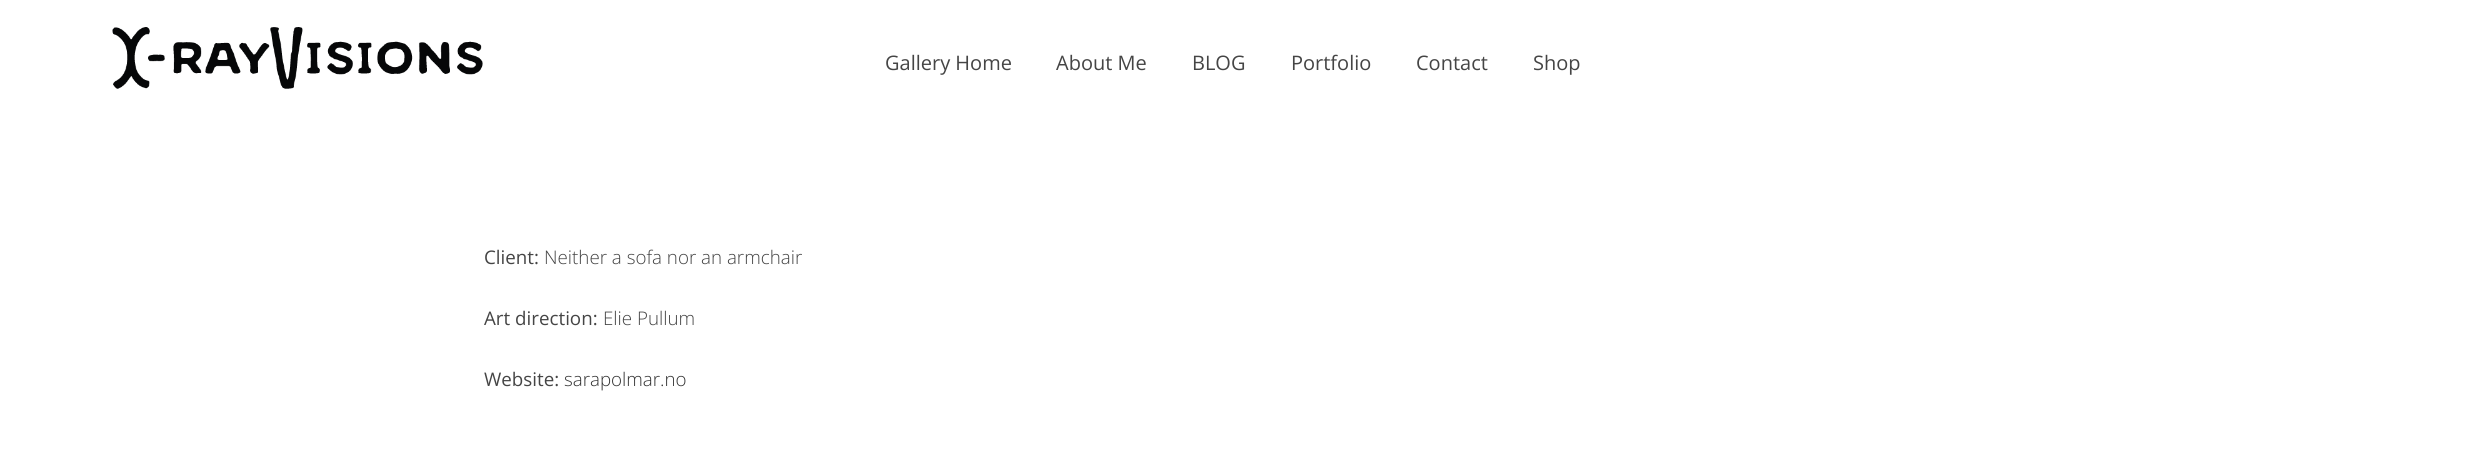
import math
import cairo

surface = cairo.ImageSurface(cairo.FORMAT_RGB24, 2468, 476)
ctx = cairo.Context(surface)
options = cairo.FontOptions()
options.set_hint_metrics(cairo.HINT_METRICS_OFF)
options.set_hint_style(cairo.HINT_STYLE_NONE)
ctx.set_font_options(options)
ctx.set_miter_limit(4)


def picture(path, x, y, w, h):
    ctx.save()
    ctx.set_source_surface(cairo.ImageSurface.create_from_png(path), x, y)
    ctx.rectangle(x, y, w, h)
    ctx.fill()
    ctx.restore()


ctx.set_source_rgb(1, 1, 1)
ctx.paint()
picture("img1.png", 112, 27, 371, 62)
ctx.select_font_face("Open Sans")
ctx.set_font_size(20)
ctx.set_source_rgb(0.271, 0.271, 0.271)
ctx.move_to(885, 70)
ctx.show_text("Gallery Home")
ctx.move_to(1056, 70)
ctx.show_text("About Me")
ctx.move_to(1192, 70)
ctx.show_text("BLOG")
ctx.move_to(1291, 70)
ctx.show_text("Portfolio")
ctx.move_to(1416, 70)
ctx.show_text("Contact")
ctx.move_to(1533, 70)
ctx.show_text("Shop")
ctx.set_font_size(18.75)
ctx.move_to(484, 264)
ctx.show_text("Client:")
ctx.select_font_face("Open Sans Light")
ctx.move_to(544, 264)
ctx.show_text("Neither a sofa nor an armchair")
ctx.select_font_face("Open Sans")
ctx.move_to(484, 325)
ctx.show_text("Art direction:")
ctx.select_font_face("Open Sans Light")
ctx.move_to(603, 325)
ctx.show_text("Elie Pullum")
ctx.select_font_face("Open Sans")
ctx.move_to(484, 386)
ctx.show_text("Website:")
ctx.select_font_face("Open Sans Light")
ctx.set_source_rgb(0.2, 0.2, 0.2)
ctx.move_to(564, 386)
ctx.show_text("sarapolmar.no")
surface.write_to_png("page.png")
